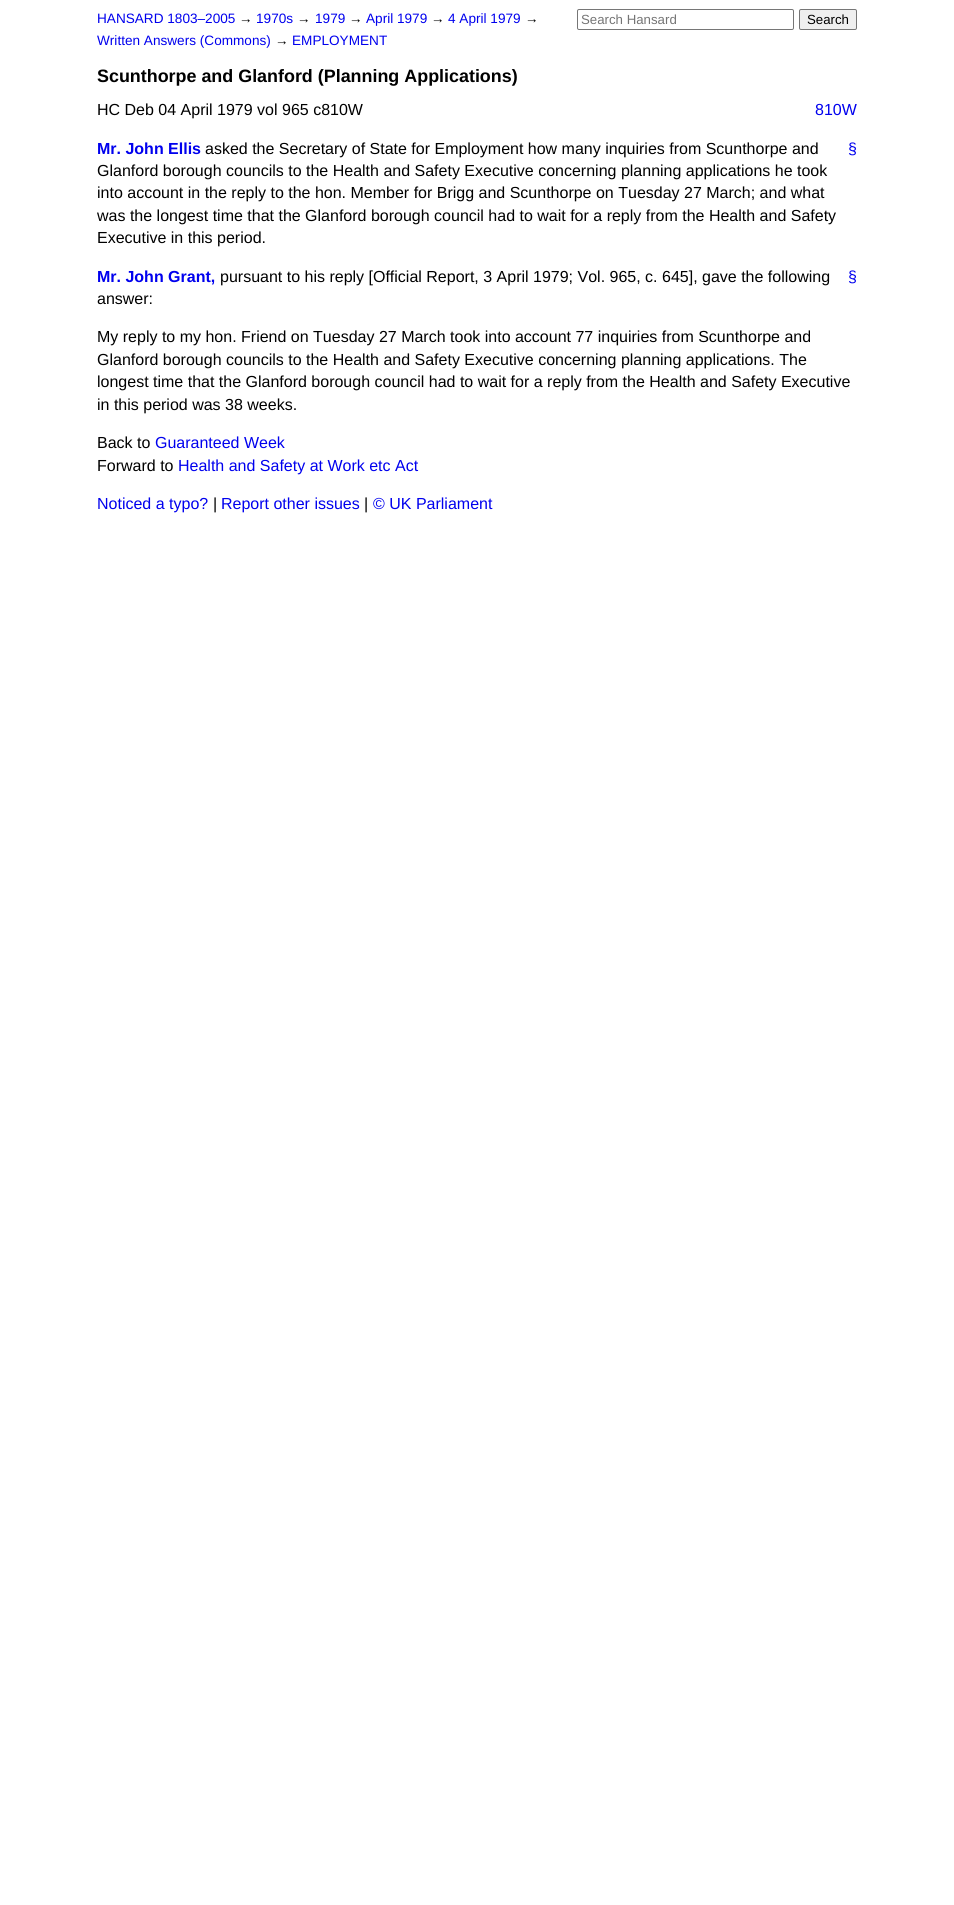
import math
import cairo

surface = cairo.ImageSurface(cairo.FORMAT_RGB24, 954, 1905)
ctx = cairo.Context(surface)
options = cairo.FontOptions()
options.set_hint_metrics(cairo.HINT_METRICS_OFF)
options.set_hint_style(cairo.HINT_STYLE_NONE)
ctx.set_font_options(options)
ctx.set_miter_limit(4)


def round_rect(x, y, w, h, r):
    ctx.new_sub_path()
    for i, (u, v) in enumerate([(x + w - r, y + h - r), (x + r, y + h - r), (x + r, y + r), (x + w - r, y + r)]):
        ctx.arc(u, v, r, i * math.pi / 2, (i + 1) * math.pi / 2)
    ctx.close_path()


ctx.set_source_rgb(1, 1, 1)
ctx.paint()
ctx.select_font_face("Liberation Sans")
ctx.set_font_size(13.6)
ctx.set_source_rgb(0, 0, 0.933)
ctx.move_to(97, 23)
ctx.show_text("HANSARD 1803–2005")
ctx.set_source_rgb(0, 0, 0)
ctx.move_to(239, 23)
ctx.show_text("→")
ctx.set_source_rgb(0, 0, 0.933)
ctx.move_to(256, 23)
ctx.show_text("1970s")
ctx.set_source_rgb(0, 0, 0)
ctx.move_to(297, 23)
ctx.show_text("→")
ctx.set_source_rgb(0, 0, 0.933)
ctx.move_to(315, 23)
ctx.show_text("1979")
ctx.set_source_rgb(0, 0, 0)
ctx.move_to(349, 23)
ctx.show_text("→")
ctx.set_source_rgb(0, 0, 0.933)
ctx.move_to(366, 23)
ctx.show_text("April 1979")
ctx.set_source_rgb(0, 0, 0)
ctx.move_to(431, 23)
ctx.show_text("→")
ctx.set_source_rgb(0, 0, 0.933)
ctx.move_to(448, 23)
ctx.show_text("4 April 1979")
ctx.set_source_rgb(0, 0, 0)
ctx.move_to(525, 23)
ctx.show_text("→")
ctx.set_source_rgb(0, 0, 0.933)
ctx.move_to(97, 45)
ctx.show_text("Written Answers (Commons)")
ctx.set_source_rgb(0, 0, 0)
ctx.move_to(275, 45)
ctx.show_text("→")
ctx.set_source_rgb(0, 0, 0.933)
ctx.move_to(292, 45)
ctx.show_text("EMPLOYMENT")
round_rect(577.5, 9.5, 216, 20, 1.5)
ctx.set_source_rgb(0.463, 0.463, 0.463)
ctx.set_line_width(1)
ctx.stroke()
ctx.set_font_size(13.25)
ctx.set_source_rgb(0.459, 0.459, 0.459)
ctx.move_to(581, 24)
ctx.show_text("Search Hansard")
ctx.set_source_rgb(0.937, 0.937, 0.937)
round_rect(799.5, 9.5, 57, 20, 1.5)
ctx.fill_preserve()
ctx.set_source_rgb(0.463, 0.463, 0.463)
ctx.stroke()
ctx.set_source_rgb(0, 0, 0)
ctx.move_to(807, 24)
ctx.show_text("Search")
ctx.select_font_face("Liberation Sans", cairo.FONT_SLANT_NORMAL, cairo.FONT_WEIGHT_BOLD)
ctx.set_font_size(17.9)
ctx.move_to(97, 82)
ctx.show_text("Scunthorpe and Glanford (Planning Applications)")
ctx.select_font_face("Liberation Sans")
ctx.set_font_size(16)
ctx.move_to(97, 115)
ctx.show_text("HC Deb 04 April 1979 vol 965 c810W")
ctx.set_source_rgb(0, 0, 0.933)
ctx.move_to(815, 115)
ctx.show_text("810W")
ctx.select_font_face("Liberation Sans", cairo.FONT_SLANT_NORMAL, cairo.FONT_WEIGHT_BOLD)
ctx.move_to(97, 154)
ctx.show_text("Mr. John Ellis")
ctx.select_font_face("Liberation Sans")
ctx.set_source_rgb(0, 0, 0)
ctx.move_to(205, 154)
ctx.show_text("asked the Secretary of State for Employment how many inquiries from Scunthorpe and")
ctx.set_source_rgb(0, 0, 0.933)
ctx.move_to(848, 154)
ctx.show_text("§")
ctx.set_source_rgb(0, 0, 0)
ctx.move_to(97, 176)
ctx.show_text("Glanford borough councils to the Health and Safety Executive concerning planning applications he took")
ctx.move_to(97, 198)
ctx.show_text("into account in the reply to the hon. Member for Brigg and Scunthorpe on Tuesday 27 March; and what")
ctx.move_to(97, 221)
ctx.show_text("was the longest time that the Glanford borough council had to wait for a reply from the Health and Safety")
ctx.move_to(97, 243)
ctx.show_text("Executive in this period.")
ctx.select_font_face("Liberation Sans", cairo.FONT_SLANT_NORMAL, cairo.FONT_WEIGHT_BOLD)
ctx.set_source_rgb(0, 0, 0.933)
ctx.move_to(97, 282)
ctx.show_text("Mr. John Grant,")
ctx.select_font_face("Liberation Sans")
ctx.set_source_rgb(0, 0, 0)
ctx.move_to(220, 282)
ctx.show_text("pursuant to his reply [Official Report, 3 April 1979; Vol. 965, c. 645], gave the following")
ctx.set_source_rgb(0, 0, 0.933)
ctx.move_to(848, 282)
ctx.show_text("§")
ctx.set_source_rgb(0, 0, 0)
ctx.move_to(97, 304)
ctx.show_text("answer:")
ctx.move_to(97, 342)
ctx.show_text("My reply to my hon. Friend on Tuesday 27 March took into account 77 inquiries from Scunthorpe and")
ctx.move_to(97, 365)
ctx.show_text("Glanford borough councils to the Health and Safety Executive concerning planning applications. The")
ctx.move_to(97, 387)
ctx.show_text("longest time that the Glanford borough council had to wait for a reply from the Health and Safety Executive")
ctx.move_to(97, 410)
ctx.show_text("in this period was 38 weeks.")
ctx.move_to(97, 448)
ctx.show_text("Back to")
ctx.set_source_rgb(0, 0, 0.933)
ctx.move_to(155, 448)
ctx.show_text("Guaranteed Week")
ctx.set_source_rgb(0, 0, 0)
ctx.move_to(97, 471)
ctx.show_text("Forward to")
ctx.set_source_rgb(0, 0, 0.933)
ctx.move_to(178, 471)
ctx.show_text("Health and Safety at Work etc Act")
ctx.move_to(97, 509)
ctx.show_text("Noticed a typo?")
ctx.set_source_rgb(0, 0, 0)
ctx.move_to(213, 509)
ctx.show_text("|")
ctx.set_source_rgb(0, 0, 0.933)
ctx.move_to(221, 509)
ctx.show_text("Report other issues")
ctx.set_source_rgb(0, 0, 0)
ctx.move_to(364, 509)
ctx.show_text("|")
ctx.set_source_rgb(0, 0, 0.933)
ctx.move_to(373, 509)
ctx.show_text("© UK Parliament")
surface.write_to_png("page.png")
